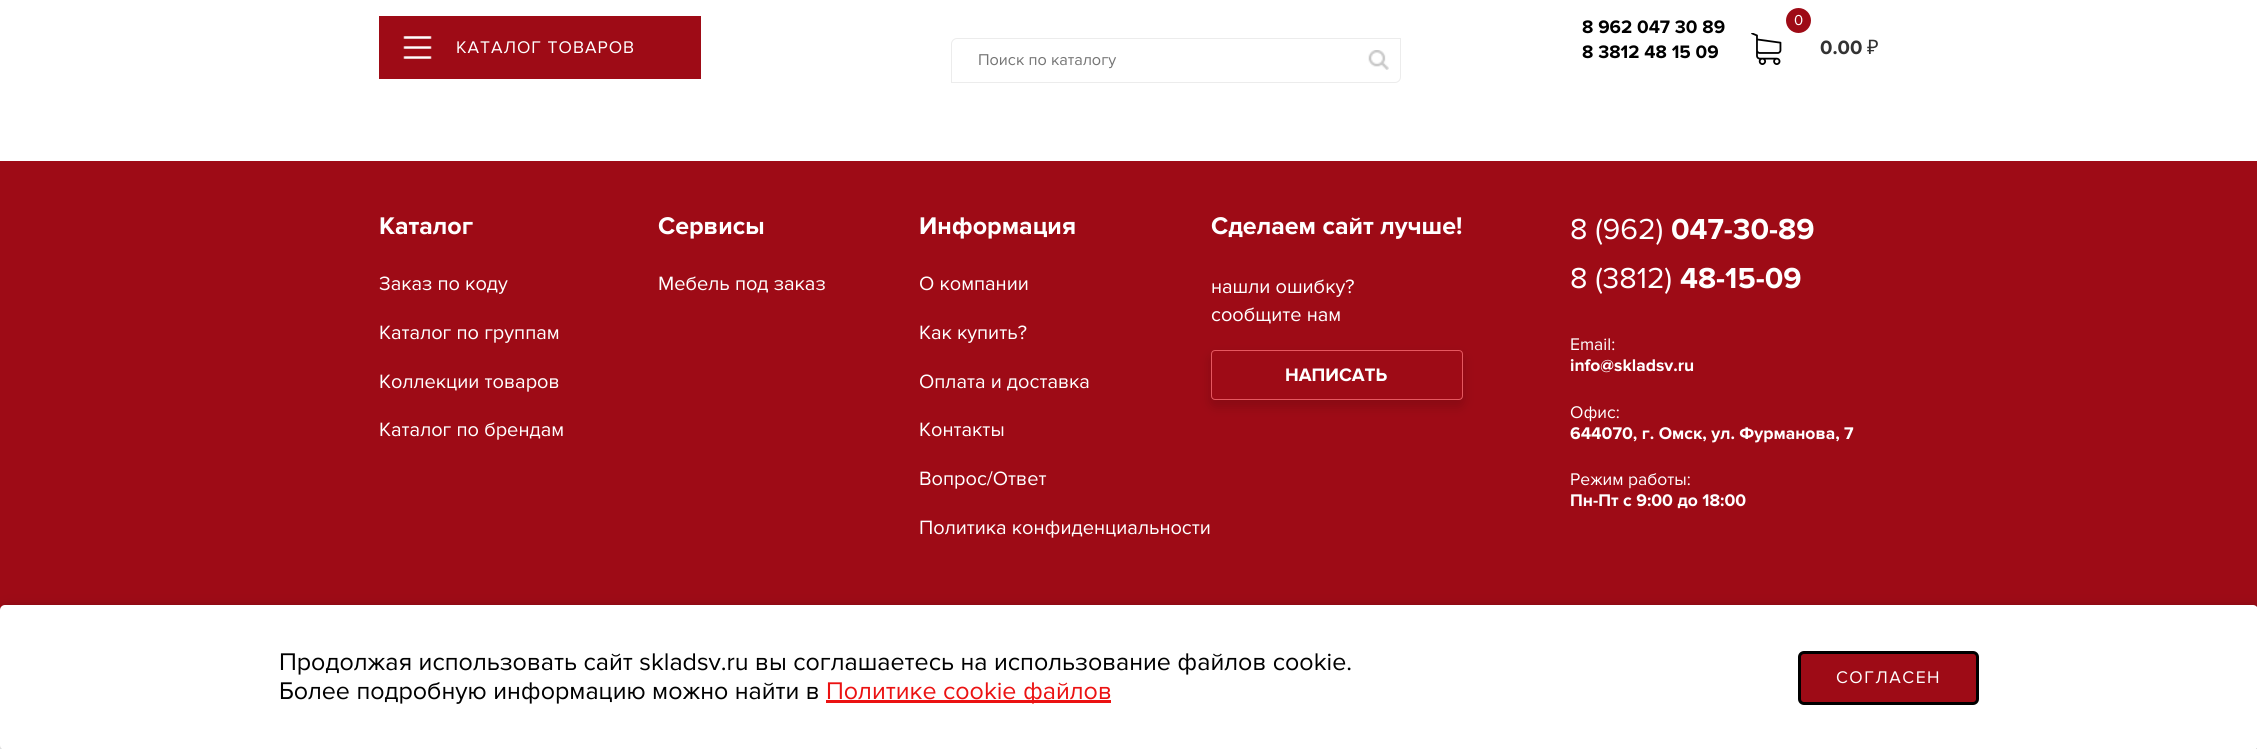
import math
import cairo

surface = cairo.ImageSurface(cairo.FORMAT_RGB24, 2257, 749)
ctx = cairo.Context(surface)
options = cairo.FontOptions()
options.set_hint_metrics(cairo.HINT_METRICS_OFF)
options.set_hint_style(cairo.HINT_STYLE_NONE)
ctx.set_font_options(options)
ctx.set_miter_limit(4)


def spaced_text(x, y, s, letter, word):
    ctx.move_to(x, y)
    for ch in s:
        ctx.show_text(ch)
        ctx.rel_move_to(letter + word * (ch == ' '), 0)


def round_rect(x, y, w, h, r):
    ctx.new_sub_path()
    for i, (u, v) in enumerate([(x + w - r, y + h - r), (x + r, y + h - r), (x + r, y + r), (x + w - r, y + r)]):
        ctx.arc(u, v, r, i * math.pi / 2, (i + 1) * math.pi / 2)
    ctx.close_path()


def shadow(x, y, w, h, r, blur, alpha):
    ctx.push_group_with_content(cairo.CONTENT_ALPHA)
    ctx.set_operator(cairo.OPERATOR_SOURCE)
    for i in range(15, -16, -2):
        e = blur * i / 6
        if min(w, h) + 2 * e > 0:
            ctx.set_source_rgba(0, 0, 0, alpha * math.erfc((i - 1) / 8.5) / 2)
            round_rect(x - e, y - e, w + 2 * e, h + 2 * e, max(0, min(r + e + blur * .6, min(w, h) / 2 + e)))
            ctx.fill()
    ctx.mask(ctx.pop_group())


def picture(path, x, y, w, h):
    ctx.save()
    ctx.set_source_surface(cairo.ImageSurface.create_from_png(path), x, y)
    ctx.rectangle(x, y, w, h)
    ctx.fill()
    ctx.restore()


ctx.set_source_rgb(1, 1, 1)
ctx.paint()
ctx.set_source_rgb(0.62, 0.043, 0.086)
ctx.rectangle(379, 16, 322, 63)
ctx.fill()
picture("img1.png", 403, 36, 29, 23)
ctx.select_font_face("Proxima Nova")
ctx.set_font_size(17.5)
ctx.set_source_rgb(1, 1, 1)
spaced_text(456, 53, "КАТАЛОГ ТОВАРОВ", 1, 0)
ctx.select_font_face("Proxima Nova", cairo.FONT_SLANT_NORMAL, cairo.FONT_WEIGHT_BOLD)
ctx.set_font_size(18.75)
ctx.set_source_rgb(0, 0, 0)
ctx.move_to(1582, 33)
ctx.show_text("8 962 047 30 89")
ctx.move_to(1582, 58)
ctx.show_text("8 3812 48 15 09")
ctx.set_source_rgb(0.62, 0.043, 0.086)
ctx.new_path()
ctx.arc(1798.5, 20.5, 12.5, 0, 2 * math.pi)
ctx.fill()
ctx.select_font_face("Proxima Nova")
ctx.set_font_size(15)
ctx.set_source_rgb(1, 1, 1)
ctx.move_to(1794, 25)
ctx.show_text("0")
picture("img2.png", 1751, 33, 31, 32)
ctx.select_font_face("Proxima Nova", cairo.FONT_SLANT_NORMAL, cairo.FONT_WEIGHT_BOLD)
ctx.set_font_size(20)
ctx.set_source_rgb(0.2, 0.2, 0.2)
ctx.move_to(1820, 54)
ctx.show_text("0.00")
ctx.select_font_face("Noto Sans")
ctx.move_to(1867, 54)
ctx.show_text("₽")
ctx.new_path()
ctx.move_to(957, 38.5)
ctx.line_to(1400.5, 38.5)
ctx.line_to(1400.5, 77)
ctx.curve_to(1400.5, 80, 1398, 82.5, 1395, 82.5)
ctx.line_to(951.5, 82.5)
ctx.line_to(951.5, 44)
ctx.curve_to(951.5, 41, 954, 38.5, 957, 38.5)
ctx.close_path()
ctx.set_source_rgb(0.922, 0.922, 0.922)
ctx.set_line_width(1)
ctx.stroke()
ctx.select_font_face("Proxima Nova")
ctx.set_font_size(16.25)
ctx.set_source_rgb(0.459, 0.459, 0.459)
ctx.move_to(978, 65)
ctx.show_text("Поиск по каталогу")
picture("img3.png", 1368, 50, 21, 20)
ctx.set_source_rgb(0.62, 0.043, 0.086)
ctx.rectangle(0, 161, 2257, 449)
ctx.fill()
ctx.select_font_face("Proxima Nova", cairo.FONT_SLANT_NORMAL, cairo.FONT_WEIGHT_BOLD)
ctx.set_font_size(25)
ctx.set_source_rgb(1, 1, 1)
ctx.move_to(379, 234)
ctx.show_text("Каталог")
ctx.select_font_face("Proxima Nova")
ctx.set_font_size(20)
ctx.move_to(379, 290)
ctx.show_text("Заказ по коду")
ctx.move_to(379, 339)
ctx.show_text("Каталог по группам")
ctx.move_to(379, 388)
ctx.show_text("Коллекции товаров")
ctx.move_to(379, 436)
ctx.show_text("Каталог по брендам")
ctx.select_font_face("Proxima Nova", cairo.FONT_SLANT_NORMAL, cairo.FONT_WEIGHT_BOLD)
ctx.set_font_size(25)
ctx.move_to(658, 234)
ctx.show_text("Сервисы")
ctx.select_font_face("Proxima Nova")
ctx.set_font_size(20)
ctx.move_to(658, 290)
ctx.show_text("Мебель под заказ")
ctx.select_font_face("Proxima Nova", cairo.FONT_SLANT_NORMAL, cairo.FONT_WEIGHT_BOLD)
ctx.set_font_size(25)
ctx.move_to(919, 234)
ctx.show_text("Информация")
ctx.select_font_face("Proxima Nova")
ctx.set_font_size(20)
ctx.move_to(919, 290)
ctx.show_text("О компании")
ctx.move_to(919, 339)
ctx.show_text("Как купить?")
ctx.move_to(919, 388)
ctx.show_text("Оплата и доставка")
ctx.move_to(919, 436)
ctx.show_text("Контакты")
ctx.move_to(919, 485)
ctx.show_text("Вопрос/Ответ")
ctx.move_to(919, 534)
ctx.show_text("Политика конфиденциальности")
ctx.select_font_face("Proxima Nova", cairo.FONT_SLANT_NORMAL, cairo.FONT_WEIGHT_BOLD)
ctx.set_font_size(25)
ctx.move_to(1211, 234)
ctx.show_text("Сделаем сайт лучше!")
ctx.select_font_face("Proxima Nova")
ctx.set_font_size(20)
ctx.move_to(1211, 293)
ctx.show_text("нашли ошибку?")
ctx.move_to(1211, 321)
ctx.show_text("сообщите нам")
ctx.set_source_rgb(0, 0, 0)
shadow(1211, 356, 252, 50, 4, 6, 0.15)
ctx.set_source_rgb(0.62, 0.043, 0.086)
round_rect(1211.5, 350.5, 251, 49, 3.5)
ctx.fill_preserve()
ctx.set_source_rgb(0.902, 0.345, 0.376)
ctx.stroke()
ctx.select_font_face("Proxima Nova", cairo.FONT_SLANT_NORMAL, cairo.FONT_WEIGHT_BOLD)
ctx.set_font_size(18.75)
ctx.set_source_rgb(1, 1, 1)
ctx.move_to(1285, 381)
ctx.show_text("НАПИСАТЬ")
ctx.select_font_face("Proxima Nova")
ctx.set_font_size(30)
ctx.move_to(1570, 239)
ctx.show_text("8 (962)")
ctx.select_font_face("Proxima Nova", cairo.FONT_SLANT_NORMAL, cairo.FONT_WEIGHT_BOLD)
ctx.move_to(1671, 239)
ctx.show_text("047-30-89")
ctx.select_font_face("Proxima Nova")
ctx.move_to(1570, 288)
ctx.show_text("8 (3812)")
ctx.select_font_face("Proxima Nova", cairo.FONT_SLANT_NORMAL, cairo.FONT_WEIGHT_BOLD)
ctx.move_to(1680, 288)
ctx.show_text("48-15-09")
ctx.select_font_face("Proxima Nova")
ctx.set_font_size(17.5)
ctx.move_to(1570, 350)
ctx.show_text("Email:")
ctx.select_font_face("Proxima Nova", cairo.FONT_SLANT_NORMAL, cairo.FONT_WEIGHT_BOLD)
ctx.move_to(1570, 371)
ctx.show_text("info@skladsv.ru")
ctx.select_font_face("Proxima Nova")
ctx.move_to(1570, 418)
ctx.show_text("Офис:")
ctx.select_font_face("Proxima Nova", cairo.FONT_SLANT_NORMAL, cairo.FONT_WEIGHT_BOLD)
ctx.move_to(1570, 439)
ctx.show_text("644070, г. Омск, ул. Фурманова, 7")
ctx.select_font_face("Proxima Nova")
ctx.move_to(1570, 485)
ctx.show_text("Режим работы:")
ctx.select_font_face("Proxima Nova", cairo.FONT_SLANT_NORMAL, cairo.FONT_WEIGHT_BOLD)
ctx.move_to(1570, 506)
ctx.show_text("Пн-Пт с 9:00 до 18:00")
ctx.set_source_rgb(0, 0, 0)
shadow(3, 609, 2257, 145, 5, 6, 0.4)
ctx.set_source_rgb(1, 1, 1)
round_rect(0, 605, 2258, 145, 5)
ctx.fill()
ctx.select_font_face("Proxima Nova")
ctx.set_font_size(25)
ctx.set_source_rgb(0, 0, 0)
ctx.move_to(279, 670)
ctx.show_text("Продолжая использовать сайт skladsv.ru вы соглашаетесь на использование файлов cookie.")
ctx.move_to(279, 699)
ctx.show_text("Более подробную информацию можно найти в")
ctx.set_source_rgb(0.918, 0.071, 0.071)
ctx.rectangle(826, 700, 285, 3)
ctx.fill()
ctx.move_to(826, 699)
ctx.show_text("Политике cookie файлов")
ctx.set_source_rgb(0.62, 0.043, 0.086)
round_rect(1799.5, 652.5, 178, 51, 4.5)
ctx.fill_preserve()
ctx.set_source_rgb(0, 0, 0)
ctx.set_line_width(3)
ctx.stroke()
ctx.set_font_size(17.5)
ctx.set_source_rgb(1, 1, 1)
spaced_text(1836, 683, "СОГЛАСЕН", 1.5, 0)
surface.write_to_png("page.png")
